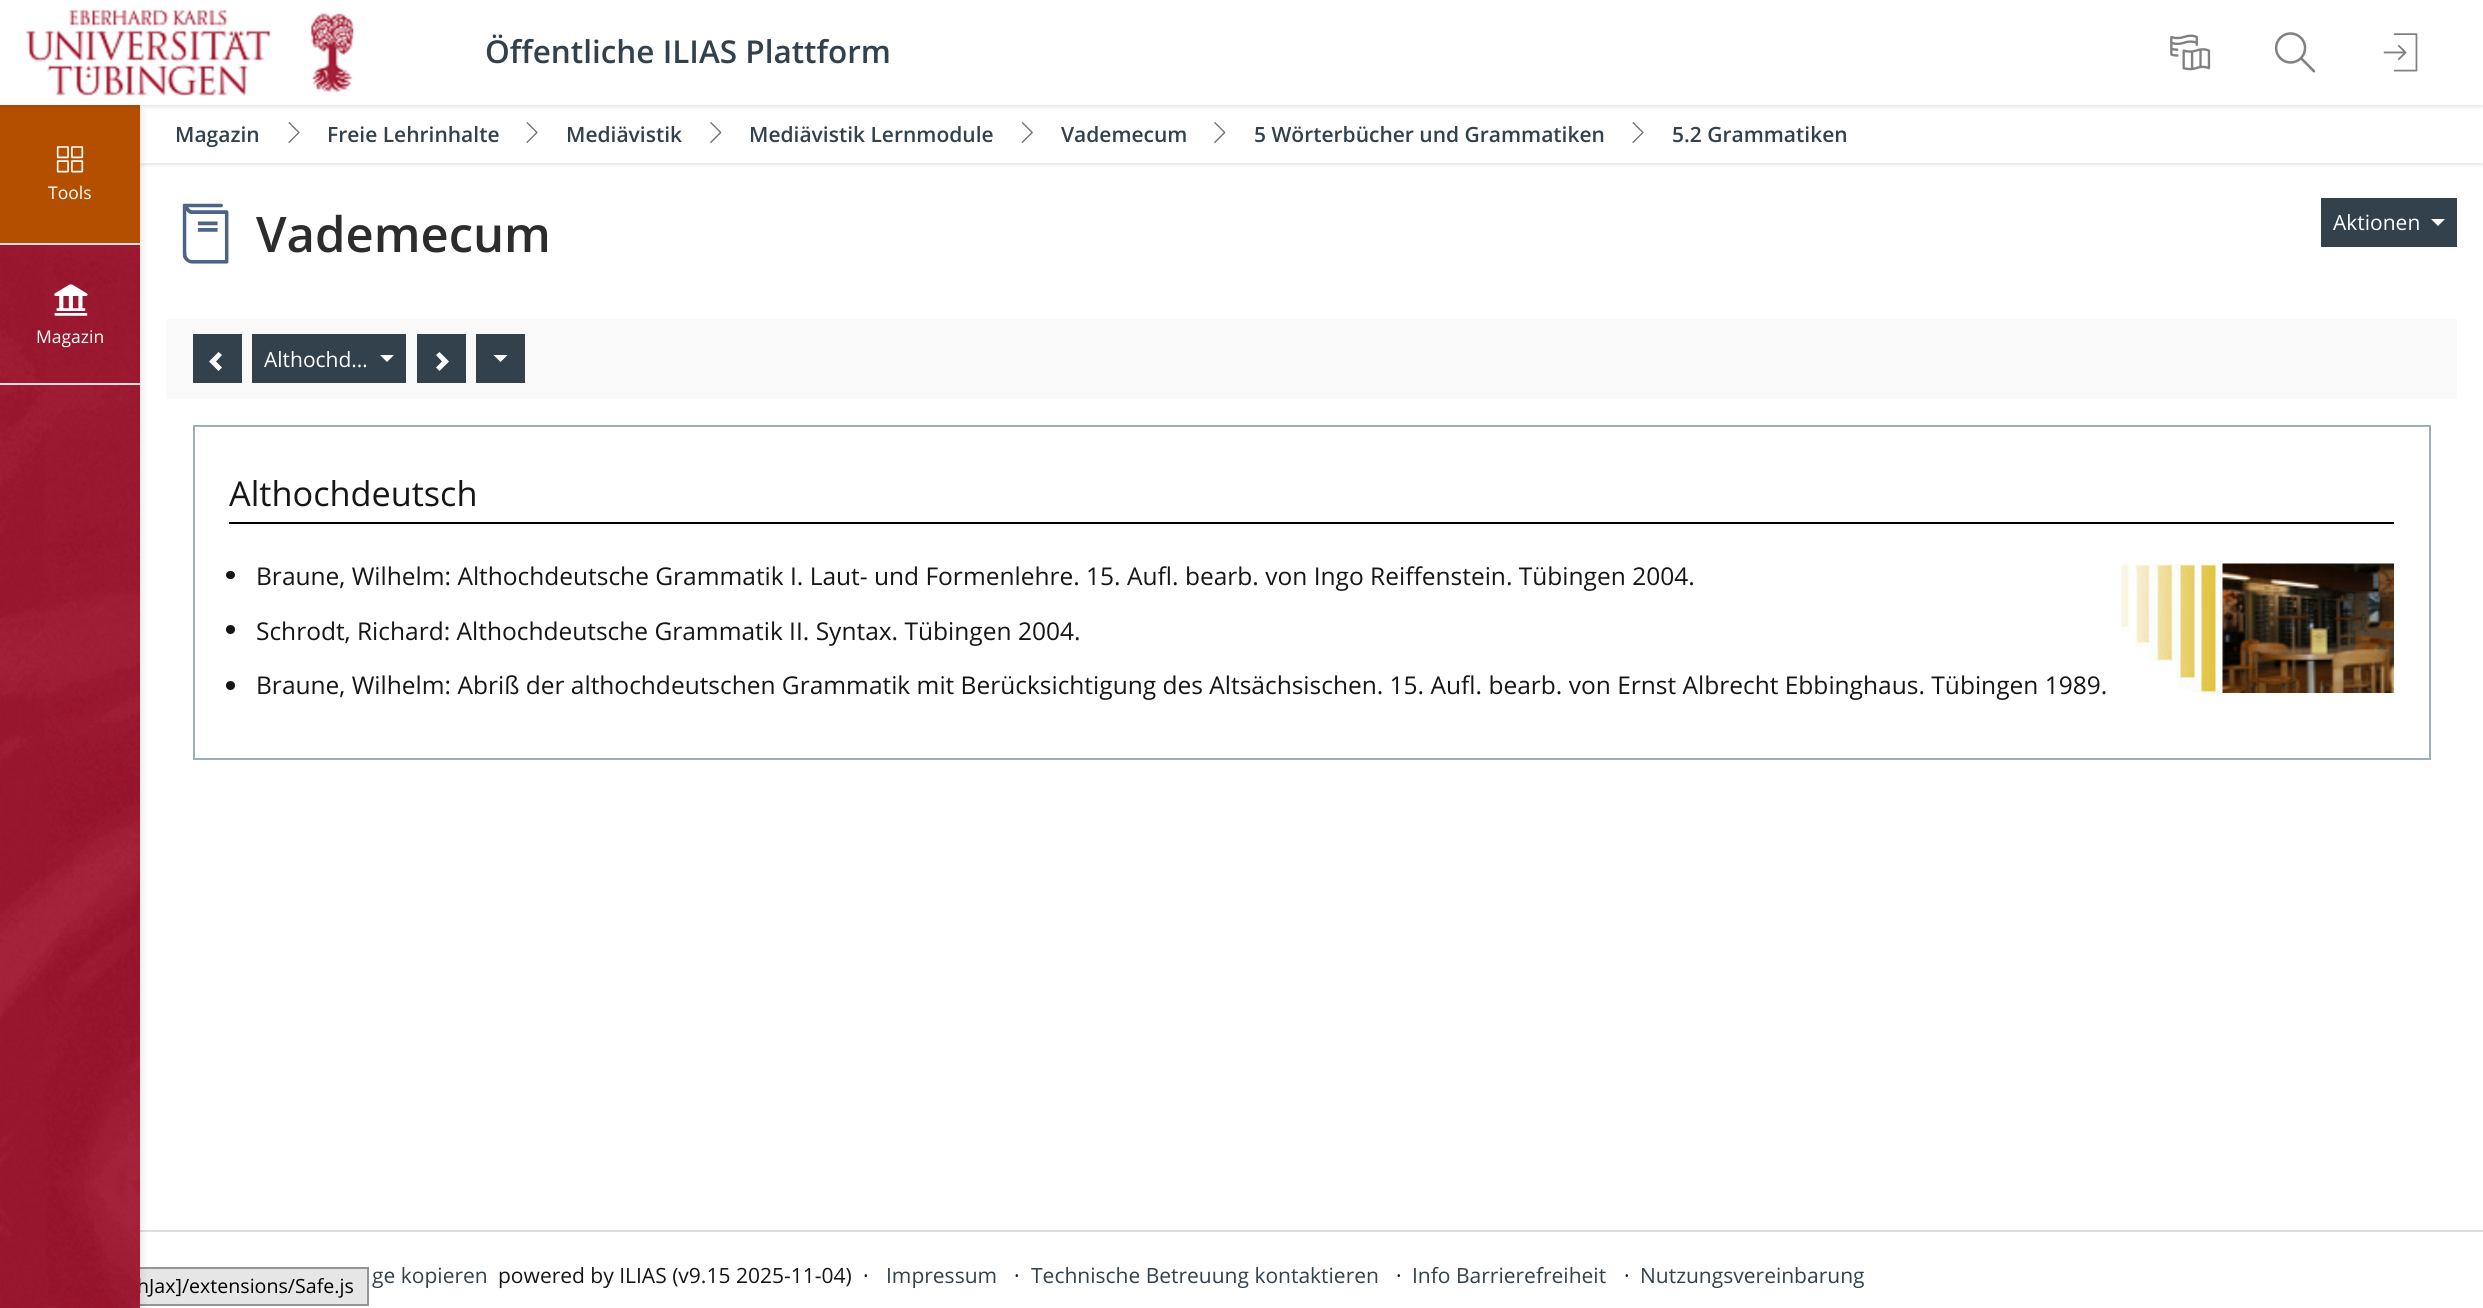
import math
import cairo

surface = cairo.ImageSurface(cairo.FORMAT_RGB24, 2483, 1308)
ctx = cairo.Context(surface)
options = cairo.FontOptions()
options.set_hint_metrics(cairo.HINT_METRICS_OFF)
options.set_hint_style(cairo.HINT_STYLE_NONE)
ctx.set_font_options(options)
ctx.set_miter_limit(4)


def round_rect(x, y, w, h, r):
    ctx.new_sub_path()
    for i, (u, v) in enumerate([(x + w - r, y + h - r), (x + r, y + h - r), (x + r, y + r), (x + w - r, y + r)]):
        ctx.arc(u, v, r, i * math.pi / 2, (i + 1) * math.pi / 2)
    ctx.close_path()


def shadow(x, y, w, h, r, blur, alpha):
    ctx.push_group_with_content(cairo.CONTENT_ALPHA)
    ctx.set_operator(cairo.OPERATOR_SOURCE)
    for i in range(15, -16, -2):
        e = blur * i / 6
        if min(w, h) + 2 * e > 0:
            ctx.set_source_rgba(0, 0, 0, alpha * math.erfc((i - 1) / 8.5) / 2)
            round_rect(x - e, y - e, w + 2 * e, h + 2 * e, max(0, min(r + e + blur * .6, min(w, h) / 2 + e)))
            ctx.fill()
    ctx.mask(ctx.pop_group())


def picture(path, x, y, w, h):
    ctx.save()
    ctx.set_source_surface(cairo.ImageSurface.create_from_png(path), x, y)
    ctx.rectangle(x, y, w, h)
    ctx.fill()
    ctx.restore()


ctx.set_source_rgb(1, 1, 1)
ctx.paint()
ctx.set_source_rgb(0, 0, 0)
shadow(140, 107, 2343, 58, 0, 2, 0.1)
ctx.set_source_rgb(1, 1, 1)
ctx.rectangle(140, 105, 2343, 58)
ctx.fill()
ctx.set_source_rgb(0.867, 0.867, 0.867)
ctx.rectangle(140, 1230, 2343, 2)
ctx.fill()
ctx.set_source_rgb(0.902, 0.902, 0.902)
ctx.rectangle(140, 1269, 227, 35)
ctx.fill()
ctx.rectangle(3, 1268, 365, 37)
ctx.set_source_rgb(0.584, 0.584, 0.584)
ctx.stroke()
ctx.set_source_rgb(0, 0, 0)
shadow(2, 110, 140, 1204, 0, 3.5, 0.1)
ctx.set_source_rgb(0.71, 0.31, 0)
ctx.rectangle(0, 105, 140, 138)
ctx.fill()
ctx.save()
ctx.rectangle(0, 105, 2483, 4)
ctx.clip()
ctx.set_source_rgb(0, 0, 0)
shadow(0, 2, 2483, 105, 0, 2, 0.1)
ctx.restore()
picture("img1.png", 26, 9, 328, 87)
ctx.select_font_face("Open Sans SemiBold")
ctx.set_font_size(31.5)
ctx.set_source_rgb(0.196, 0.255, 0.294)
ctx.move_to(485, 63)
ctx.show_text("Öffentliche ILIAS Plattform")
picture("img2.png", 2170, 34, 41, 37)
picture("img3.png", 2274, 32, 42, 41)
picture("img4.png", 2383, 33, 35, 39)
ctx.select_font_face("Open Sans")
ctx.set_font_size(19.6)
ctx.set_source_rgb(0, 0, 0)
ctx.move_to(137, 1293)
ctx.show_text("hJax]/extensions/Safe.js")
picture("img5.png", 0, 385, 140, 923)
ctx.set_source_rgb(0.867, 0.867, 0.867)
ctx.rectangle(0, 243, 140, 2)
ctx.fill()
picture("img6.png", 56, 146, 28, 27)
ctx.set_font_size(17.5)
ctx.set_source_rgb(1, 1, 1)
ctx.move_to(48, 199)
ctx.show_text("Tools")
picture("img7.png", 0, 245, 140, 138)
ctx.set_source_rgb(0.867, 0.867, 0.867)
ctx.rectangle(0, 383, 140, 2)
ctx.fill()
picture("img8.png", 54, 284, 34, 32)
ctx.set_source_rgb(1, 1, 1)
ctx.move_to(36, 343)
ctx.show_text("Magazin")
ctx.select_font_face("Open Sans SemiBold")
ctx.set_font_size(21)
ctx.set_source_rgb(0.196, 0.255, 0.294)
ctx.move_to(175, 142)
ctx.show_text("Magazin")
picture("img9.png", 288, 122, 12, 21)
ctx.move_to(327, 142)
ctx.show_text("Freie Lehrinhalte")
picture("img9.png", 526, 122, 12, 21)
ctx.move_to(566, 142)
ctx.show_text("Mediävistik")
picture("img10.png", 710, 122, 12, 21)
ctx.move_to(749, 142)
ctx.show_text("Mediävistik Lernmodule")
picture("img11.png", 1021, 122, 12, 21)
ctx.move_to(1061, 142)
ctx.show_text("Vademecum")
picture("img10.png", 1214, 122, 12, 21)
ctx.move_to(1254, 142)
ctx.show_text("5 Wörterbücher und Grammatiken")
picture("img9.png", 1632, 122, 12, 21)
ctx.move_to(1672, 142)
ctx.show_text("5.2 Grammatiken")
picture("img12.png", 182, 203, 47, 61)
ctx.set_font_size(49)
ctx.set_source_rgb(0.173, 0.173, 0.173)
ctx.move_to(256, 252)
ctx.show_text("Vademecum")
ctx.set_source_rgb(0.196, 0.255, 0.294)
ctx.rectangle(2321, 198, 136, 49)
ctx.fill()
ctx.select_font_face("Open Sans")
ctx.set_font_size(21)
ctx.set_source_rgb(1, 1, 1)
ctx.move_to(2333, 230)
ctx.show_text("Aktionen")
ctx.new_path()
ctx.move_to(2431, 219)
ctx.line_to(2445, 219)
ctx.line_to(2438, 226)
ctx.close_path()
ctx.fill()
ctx.set_source_rgb(0.976, 0.976, 0.976)
ctx.rectangle(166, 319, 2291, 80)
ctx.fill()
ctx.set_source_rgb(0.196, 0.255, 0.294)
ctx.rectangle(193, 334, 49, 49)
ctx.fill()
ctx.set_source_rgb(1, 1, 1)
ctx.new_path()
ctx.move_to(222, 355)
ctx.line_to(216, 361.5)
ctx.line_to(222, 367.5)
ctx.line_to(218.5, 371)
ctx.line_to(209, 361.5)
ctx.line_to(218.5, 352)
ctx.close_path()
ctx.fill()
ctx.set_source_rgb(0.196, 0.255, 0.294)
ctx.rectangle(252, 334, 154, 49)
ctx.fill()
ctx.set_source_rgb(1, 1, 1)
ctx.move_to(264, 367)
ctx.show_text("Althochd…")
ctx.new_path()
ctx.move_to(380, 355)
ctx.line_to(394, 355)
ctx.line_to(387, 362)
ctx.close_path()
ctx.fill()
ctx.set_source_rgb(0.196, 0.255, 0.294)
ctx.rectangle(417, 334, 49, 49)
ctx.fill()
ctx.set_source_rgb(1, 1, 1)
ctx.new_path()
ctx.move_to(449, 361.5)
ctx.line_to(439.5, 371)
ctx.line_to(436, 367.5)
ctx.line_to(442, 361.5)
ctx.line_to(436, 355)
ctx.line_to(439.5, 352)
ctx.close_path()
ctx.fill()
ctx.set_source_rgb(0.196, 0.255, 0.294)
ctx.rectangle(476, 334, 49, 49)
ctx.fill()
ctx.set_source_rgb(1, 1, 1)
ctx.new_path()
ctx.move_to(493.5, 355)
ctx.line_to(507.5, 355)
ctx.line_to(500.5, 362)
ctx.close_path()
ctx.fill()
ctx.rectangle(194, 426, 2236, 333)
ctx.set_source_rgb(0.62, 0.678, 0.729)
ctx.stroke()
ctx.set_source_rgb(0, 0, 0)
ctx.rectangle(229, 522, 2165, 2)
ctx.fill()
ctx.set_font_size(34.25)
ctx.set_source_rgb(0.086, 0.086, 0.086)
ctx.move_to(229, 506)
ctx.show_text("Althochdeutsch")
round_rect(226, 571, 9, 8, 4)
ctx.fill()
ctx.set_font_size(24.5)
ctx.move_to(256, 585)
ctx.show_text("Braune, Wilhelm: Althochdeutsche Grammatik I. Laut- und Formenlehre. 15. Aufl. bearb. von Ingo Reiffenstein. Tübingen 2004.")
picture("img13.png", 2121, 563, 273, 130)
ctx.arc(230.5, 629.5, 4.5, 0, 2 * math.pi)
ctx.fill()
ctx.move_to(256, 640)
ctx.show_text("Schrodt, Richard: Althochdeutsche Grammatik II. Syntax. Tübingen 2004.")
ctx.new_path()
ctx.arc(230.5, 685.5, 4.5, 0, 2 * math.pi)
ctx.fill()
ctx.move_to(256, 694)
ctx.show_text("Braune, Wilhelm: Abriß der althochdeutschen Grammatik mit Berücksichtigung des Altsächsischen. 15. Aufl. bearb. von Ernst Albrecht Ebbinghaus. Tübingen 1989.")
ctx.set_font_size(21)
ctx.set_source_rgb(0.196, 0.255, 0.294)
ctx.move_to(372, 1283)
ctx.show_text("ge kopieren")
ctx.set_source_rgb(0.086, 0.086, 0.086)
ctx.move_to(498, 1283)
ctx.show_text("powered by ILIAS (v9.15 2025-11-04)")
ctx.move_to(863, 1283)
ctx.show_text("·")
ctx.set_source_rgb(0.196, 0.255, 0.294)
ctx.move_to(886, 1283)
ctx.show_text("Impressum")
ctx.set_source_rgb(0.086, 0.086, 0.086)
ctx.move_to(1014, 1283)
ctx.show_text("·")
ctx.set_source_rgb(0.196, 0.255, 0.294)
ctx.move_to(1031, 1283)
ctx.show_text("Technische Betreuung kontaktieren")
ctx.set_source_rgb(0.086, 0.086, 0.086)
ctx.move_to(1396, 1283)
ctx.show_text("·")
ctx.set_source_rgb(0.196, 0.255, 0.294)
ctx.move_to(1412, 1283)
ctx.show_text("Info Barrierefreiheit")
ctx.set_source_rgb(0.086, 0.086, 0.086)
ctx.move_to(1624, 1283)
ctx.show_text("·")
ctx.set_source_rgb(0.196, 0.255, 0.294)
ctx.move_to(1640, 1283)
ctx.show_text("Nutzungsvereinbarung")
surface.write_to_png("page.png")
